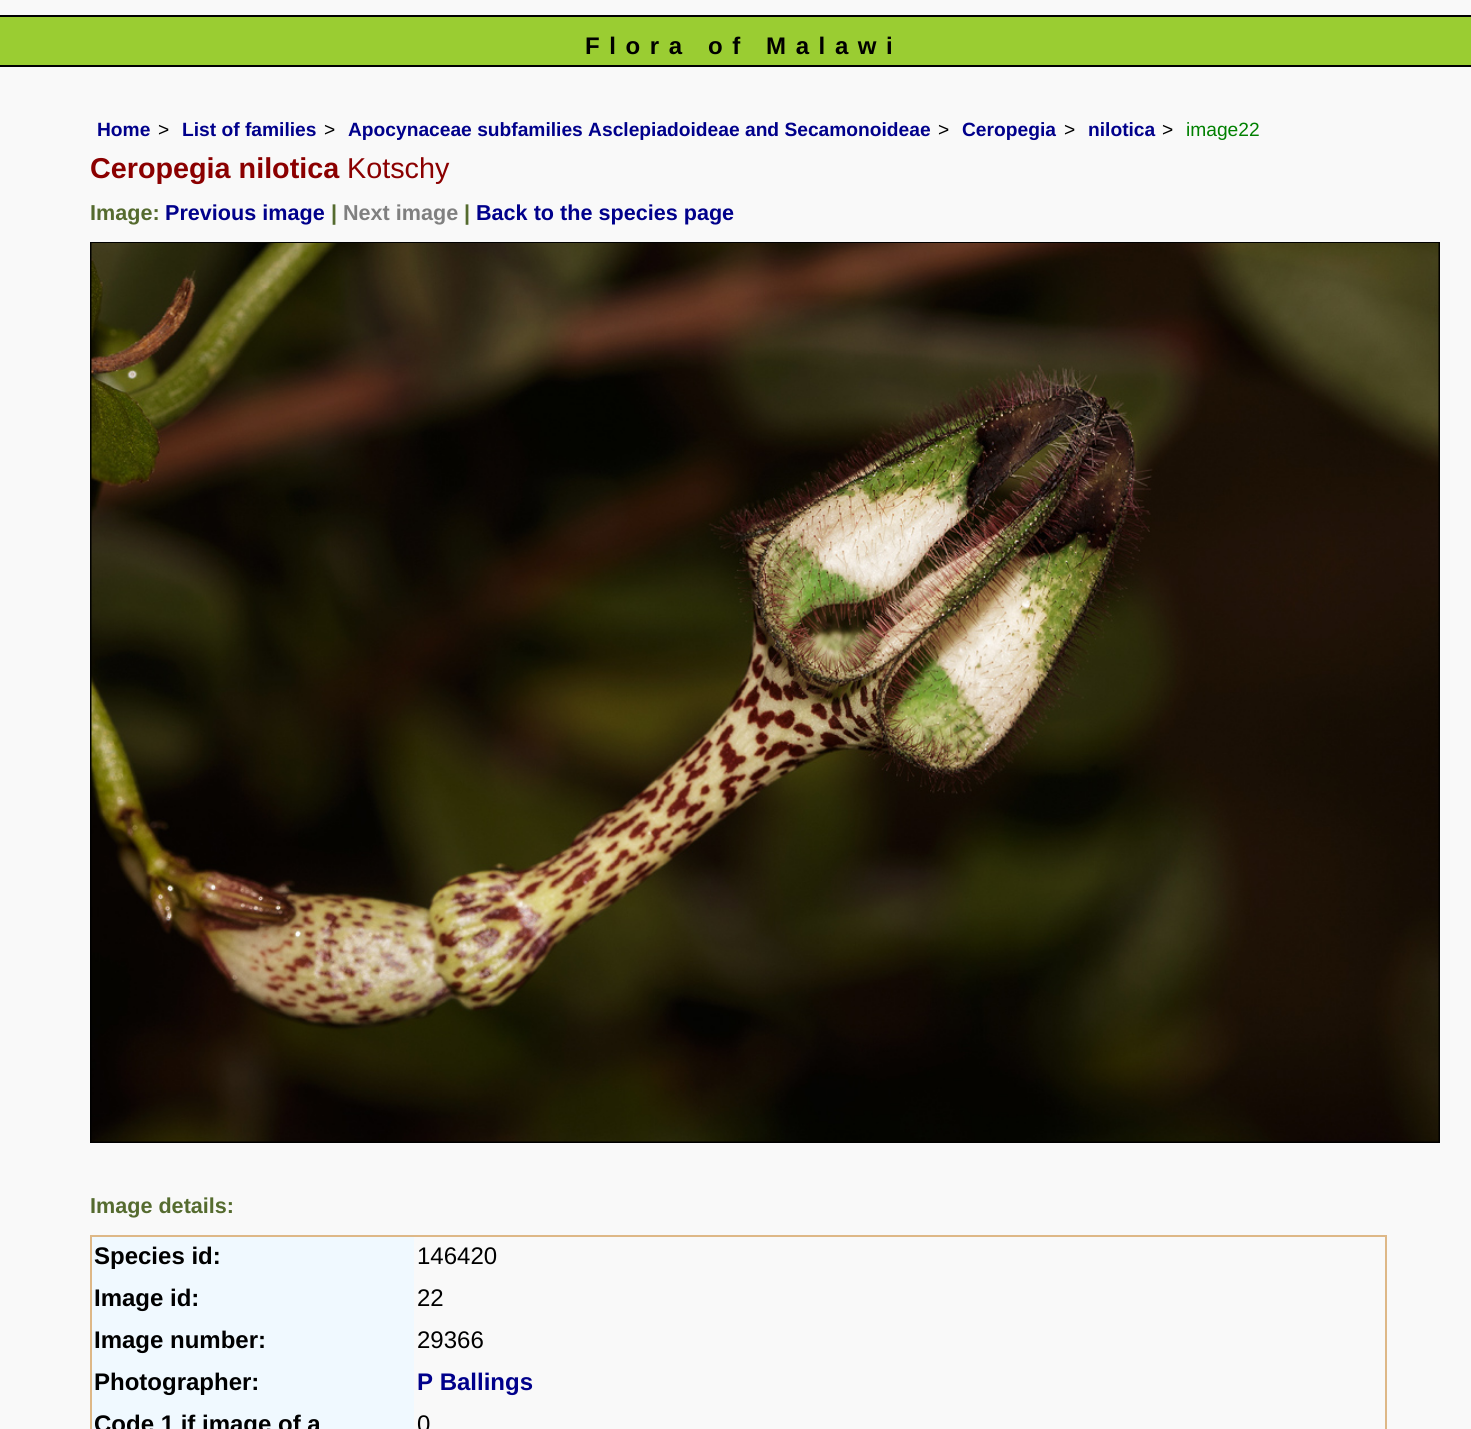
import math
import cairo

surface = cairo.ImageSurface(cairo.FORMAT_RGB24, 1471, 1429)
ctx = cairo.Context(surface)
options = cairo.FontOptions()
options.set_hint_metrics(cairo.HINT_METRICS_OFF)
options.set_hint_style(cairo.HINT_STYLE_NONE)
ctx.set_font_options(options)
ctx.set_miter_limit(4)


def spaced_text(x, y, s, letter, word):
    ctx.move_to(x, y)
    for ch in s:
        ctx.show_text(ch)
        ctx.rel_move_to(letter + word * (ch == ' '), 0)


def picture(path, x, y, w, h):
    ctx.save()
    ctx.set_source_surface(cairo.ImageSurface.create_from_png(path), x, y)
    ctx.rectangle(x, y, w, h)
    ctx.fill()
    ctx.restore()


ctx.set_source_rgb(0.973, 0.973, 0.973)
ctx.paint()
ctx.set_source_rgb(0.604, 0.804, 0.196)
ctx.rectangle(0, 17, 1471, 48)
ctx.fill()
ctx.set_source_rgb(0, 0, 0)
ctx.rectangle(0, 15, 1471, 2)
ctx.fill()
ctx.rectangle(0, 65, 1471, 2)
ctx.fill()
ctx.select_font_face("Liberation Sans", cairo.FONT_SLANT_NORMAL, cairo.FONT_WEIGHT_BOLD)
ctx.set_font_size(24)
spaced_text(585, 54, "Flora of Malawi", 9.6, 0)
ctx.set_font_size(19.2)
ctx.set_source_rgb(0, 0, 0.545)
ctx.move_to(97, 136)
ctx.show_text("Home")
ctx.select_font_face("Liberation Sans")
ctx.set_source_rgb(0, 0, 0)
ctx.move_to(158, 136)
ctx.show_text(">")
ctx.select_font_face("Liberation Sans", cairo.FONT_SLANT_NORMAL, cairo.FONT_WEIGHT_BOLD)
ctx.set_source_rgb(0, 0, 0.545)
ctx.move_to(182, 136)
ctx.show_text("List of families")
ctx.select_font_face("Liberation Sans")
ctx.set_source_rgb(0, 0, 0)
ctx.move_to(324, 136)
ctx.show_text(">")
ctx.select_font_face("Liberation Sans", cairo.FONT_SLANT_NORMAL, cairo.FONT_WEIGHT_BOLD)
ctx.set_source_rgb(0, 0, 0.545)
ctx.move_to(348, 136)
ctx.show_text("Apocynaceae subfamilies Asclepiadoideae and Secamonoideae")
ctx.select_font_face("Liberation Sans")
ctx.set_source_rgb(0, 0, 0)
ctx.move_to(938, 136)
ctx.show_text(">")
ctx.select_font_face("Liberation Sans", cairo.FONT_SLANT_NORMAL, cairo.FONT_WEIGHT_BOLD)
ctx.set_source_rgb(0, 0, 0.545)
ctx.move_to(962, 136)
ctx.show_text("Ceropegia")
ctx.select_font_face("Liberation Sans")
ctx.set_source_rgb(0, 0, 0)
ctx.move_to(1064, 136)
ctx.show_text(">")
ctx.select_font_face("Liberation Sans", cairo.FONT_SLANT_NORMAL, cairo.FONT_WEIGHT_BOLD)
ctx.set_source_rgb(0, 0, 0.545)
ctx.move_to(1088, 136)
ctx.show_text("nilotica")
ctx.select_font_face("Liberation Sans")
ctx.set_source_rgb(0, 0, 0)
ctx.move_to(1162, 136)
ctx.show_text(">")
ctx.set_source_rgb(0, 0.502, 0)
ctx.move_to(1186, 136)
ctx.show_text("image22")
ctx.select_font_face("Liberation Sans", cairo.FONT_SLANT_NORMAL, cairo.FONT_WEIGHT_BOLD)
ctx.set_font_size(28.75)
ctx.set_source_rgb(0.545, 0, 0)
ctx.move_to(90, 178)
ctx.show_text("Ceropegia nilotica")
ctx.select_font_face("Liberation Sans")
ctx.move_to(347, 178)
ctx.show_text("Kotschy")
ctx.select_font_face("Liberation Sans", cairo.FONT_SLANT_NORMAL, cairo.FONT_WEIGHT_BOLD)
ctx.set_font_size(21.6)
ctx.set_source_rgb(0.333, 0.42, 0.184)
ctx.move_to(90, 220)
ctx.show_text("Image:")
ctx.set_source_rgb(0, 0, 0.545)
ctx.move_to(165, 220)
ctx.show_text("Previous image")
ctx.set_source_rgb(0.333, 0.42, 0.184)
ctx.move_to(331, 220)
ctx.show_text("|")
ctx.set_source_rgb(0.502, 0.502, 0.502)
ctx.move_to(343, 220)
ctx.show_text("Next image")
ctx.set_source_rgb(0.333, 0.42, 0.184)
ctx.move_to(464, 220)
ctx.show_text("|")
ctx.set_source_rgb(0, 0, 0.545)
ctx.move_to(476, 220)
ctx.show_text("Back to the species page")
ctx.rectangle(91, 243, 1348, 899)
ctx.set_source_rgb(0, 0, 0)
ctx.stroke()
picture("img1.png", 91, 243, 1348, 899)
ctx.set_source_rgb(0.333, 0.42, 0.184)
ctx.move_to(90, 1213)
ctx.show_text("Image details:")
ctx.set_source_rgb(0.871, 0.722, 0.529)
ctx.rectangle(90, 1235, 1296, 2)
ctx.fill()
ctx.rectangle(1385, 1235, 2, 194)
ctx.fill()
ctx.rectangle(90, 1235, 2, 194)
ctx.fill()
ctx.set_source_rgb(0.941, 0.973, 1)
ctx.rectangle(92, 1237, 322, 192)
ctx.fill()
ctx.set_font_size(24)
ctx.set_source_rgb(0, 0, 0)
ctx.move_to(94, 1264)
ctx.show_text("Species id:")
ctx.select_font_face("Liberation Sans")
ctx.move_to(417, 1264)
ctx.show_text("146420")
ctx.select_font_face("Liberation Sans", cairo.FONT_SLANT_NORMAL, cairo.FONT_WEIGHT_BOLD)
ctx.move_to(94, 1306)
ctx.show_text("Image id:")
ctx.select_font_face("Liberation Sans")
ctx.move_to(417, 1306)
ctx.show_text("22")
ctx.select_font_face("Liberation Sans", cairo.FONT_SLANT_NORMAL, cairo.FONT_WEIGHT_BOLD)
ctx.move_to(94, 1348)
ctx.show_text("Image number:")
ctx.select_font_face("Liberation Sans")
ctx.move_to(417, 1348)
ctx.show_text("29366")
ctx.select_font_face("Liberation Sans", cairo.FONT_SLANT_NORMAL, cairo.FONT_WEIGHT_BOLD)
ctx.move_to(94, 1390)
ctx.show_text("Photographer:")
ctx.set_source_rgb(0, 0, 0.545)
ctx.move_to(417, 1390)
ctx.show_text("P Ballings")
ctx.set_source_rgb(0, 0, 0)
ctx.move_to(94, 1432)
ctx.show_text("Code 1 if image of a")
ctx.select_font_face("Liberation Sans")
ctx.move_to(417, 1432)
ctx.show_text("0")
surface.write_to_png("page.png")
